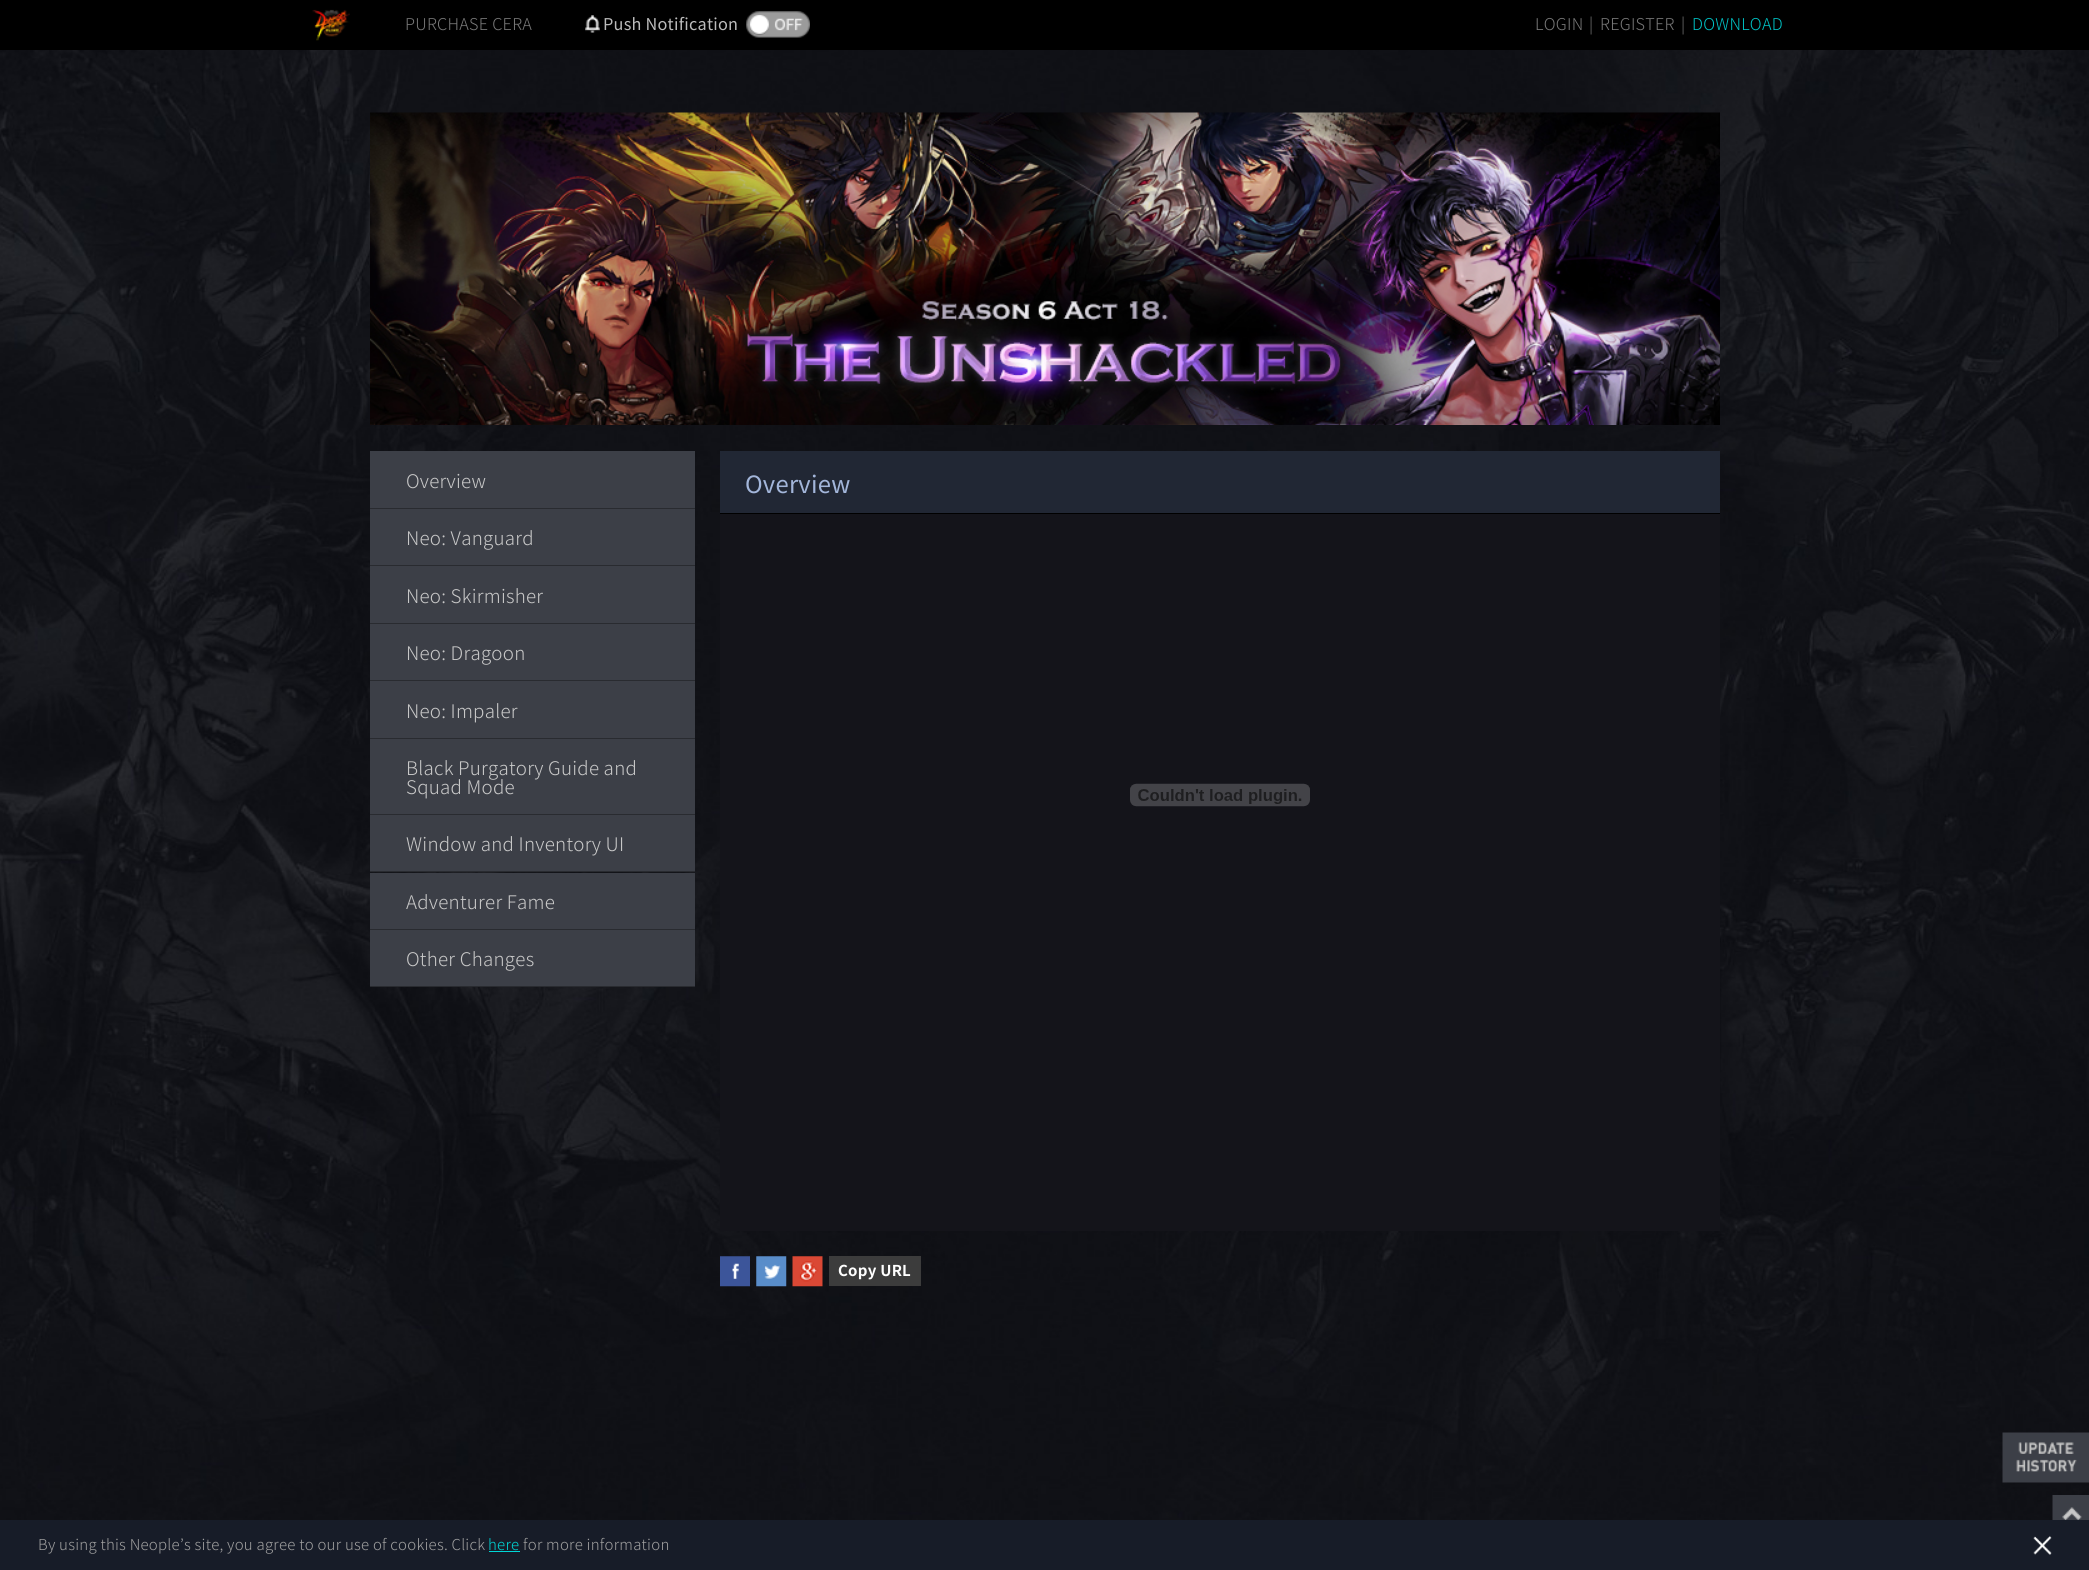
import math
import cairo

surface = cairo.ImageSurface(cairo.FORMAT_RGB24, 2089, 1570)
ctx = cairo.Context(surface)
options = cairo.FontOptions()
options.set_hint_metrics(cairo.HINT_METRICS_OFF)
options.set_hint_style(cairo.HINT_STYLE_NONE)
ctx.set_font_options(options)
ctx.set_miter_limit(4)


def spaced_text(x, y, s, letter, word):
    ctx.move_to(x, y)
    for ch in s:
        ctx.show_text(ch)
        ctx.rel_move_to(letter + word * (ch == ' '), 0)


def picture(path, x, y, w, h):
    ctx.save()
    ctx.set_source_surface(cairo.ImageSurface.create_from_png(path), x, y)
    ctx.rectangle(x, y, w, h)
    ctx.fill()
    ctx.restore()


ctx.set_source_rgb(0, 0, 0)
ctx.paint()
picture("img1.png", 312, 9, 38, 32)
ctx.select_font_face("Noto Sans KR Light")
ctx.set_font_size(16.25)
ctx.set_source_rgb(0.471, 0.471, 0.471)
spaced_text(405, 30, "PURCHASE CERA", 0.25, 0)
picture("img2.png", 585, 15, 15, 18)
ctx.select_font_face("Noto Sans KR")
ctx.set_source_rgb(0.733, 0.733, 0.733)
spaced_text(603, 30, "Push Notification", 0.25, 0)
picture("img3.png", 746, 11, 64, 27)
ctx.select_font_face("Noto Sans KR Light")
ctx.set_source_rgb(0.471, 0.471, 0.471)
spaced_text(1535, 30, "LOGIN", 0.25, 0)
spaced_text(1589, 30, "|", 0.25, 0)
spaced_text(1600, 30, "REGISTER", 0.25, 0)
spaced_text(1681, 30, "|", 0.25, 0)
ctx.set_source_rgb(0, 0.765, 0.776)
spaced_text(1692, 30, "DOWNLOAD", 0.25, 0)
picture("img4.png", 0, 50, 2089, 1470)
picture("img5.png", 370, 112, 1350, 313)
ctx.set_source_rgb(0.161, 0.169, 0.188)
ctx.rectangle(370, 508, 325, 1)
ctx.fill()
ctx.set_source_rgb(0.235, 0.247, 0.278)
ctx.rectangle(370, 451, 325, 57)
ctx.fill()
ctx.set_font_size(18.75)
ctx.set_source_rgb(0.784, 0.784, 0.784)
spaced_text(406, 488, "Overview", 0.25, 0)
ctx.set_source_rgb(0.161, 0.169, 0.188)
ctx.rectangle(370, 565, 325, 1)
ctx.fill()
ctx.set_source_rgb(0.235, 0.247, 0.278)
ctx.rectangle(370, 509, 325, 56)
ctx.fill()
ctx.set_source_rgb(0.784, 0.784, 0.784)
spaced_text(406, 545, "Neo: Vanguard", 0.25, 0)
ctx.set_source_rgb(0.161, 0.169, 0.188)
ctx.rectangle(370, 623, 325, 1)
ctx.fill()
ctx.set_source_rgb(0.235, 0.247, 0.278)
ctx.rectangle(370, 566, 325, 57)
ctx.fill()
ctx.set_source_rgb(0.784, 0.784, 0.784)
spaced_text(406, 603, "Neo: Skirmisher", 0.25, 0)
ctx.set_source_rgb(0.161, 0.169, 0.188)
ctx.rectangle(370, 680, 325, 1)
ctx.fill()
ctx.set_source_rgb(0.235, 0.247, 0.278)
ctx.rectangle(370, 624, 325, 56)
ctx.fill()
ctx.set_source_rgb(0.784, 0.784, 0.784)
spaced_text(406, 660, "Neo: Dragoon", 0.25, 0)
ctx.set_source_rgb(0.161, 0.169, 0.188)
ctx.rectangle(370, 738, 325, 1)
ctx.fill()
ctx.set_source_rgb(0.235, 0.247, 0.278)
ctx.rectangle(370, 681, 325, 57)
ctx.fill()
ctx.set_source_rgb(0.784, 0.784, 0.784)
spaced_text(406, 718, "Neo: Impaler", 0.25, 0)
ctx.set_source_rgb(0.161, 0.169, 0.188)
ctx.rectangle(370, 814, 325, 1)
ctx.fill()
ctx.set_source_rgb(0.235, 0.247, 0.278)
ctx.rectangle(370, 739, 325, 75)
ctx.fill()
ctx.set_source_rgb(0.784, 0.784, 0.784)
spaced_text(406, 775, "Black Purgatory Guide and", 0.25, 0)
spaced_text(406, 794, "Squad Mode", 0.25, 0)
ctx.set_source_rgb(0.161, 0.169, 0.188)
ctx.rectangle(370, 871, 325, 1)
ctx.fill()
ctx.set_source_rgb(0.235, 0.247, 0.278)
ctx.rectangle(370, 815, 325, 56)
ctx.fill()
ctx.set_source_rgb(0.784, 0.784, 0.784)
spaced_text(406, 851, "Window and Inventory UI", 0.25, 0)
ctx.set_source_rgb(0.161, 0.169, 0.188)
ctx.rectangle(370, 929, 325, 1)
ctx.fill()
ctx.set_source_rgb(0.235, 0.247, 0.278)
ctx.rectangle(370, 873, 325, 56)
ctx.fill()
ctx.set_source_rgb(0.784, 0.784, 0.784)
spaced_text(406, 909, "Adventurer Fame", 0.25, 0)
ctx.set_source_rgb(0.161, 0.169, 0.188)
ctx.rectangle(370, 986, 325, 1)
ctx.fill()
ctx.set_source_rgb(0.235, 0.247, 0.278)
ctx.rectangle(370, 930, 325, 56)
ctx.fill()
ctx.set_source_rgb(0.784, 0.784, 0.784)
spaced_text(406, 966, "Other Changes", 0.25, 0)
ctx.set_source_rgb(0.082, 0.082, 0.102)
ctx.rectangle(720, 514, 1000, 717)
ctx.fill()
ctx.set_source_rgb(0.129, 0.153, 0.204)
ctx.rectangle(720, 451, 1000, 62)
ctx.fill()
ctx.set_source_rgb(0, 0, 0)
ctx.rectangle(720, 513, 1000, 1)
ctx.fill()
ctx.select_font_face("Noto Sans KR")
ctx.set_font_size(23.75)
ctx.set_source_rgb(0.639, 0.714, 0.855)
spaced_text(745, 493, "Overview", 0.25, 0)
picture("img6.png", 1130, 783, 180, 24)
picture("img7.png", 720, 1256, 30, 31)
picture("img8.png", 756, 1256, 31, 31)
picture("img9.png", 792, 1256, 31, 31)
ctx.set_source_rgb(0.235, 0.235, 0.235)
ctx.rectangle(829, 1256, 92, 30)
ctx.fill()
ctx.select_font_face("Noto Sans KR", cairo.FONT_SLANT_NORMAL, cairo.FONT_WEIGHT_BOLD)
ctx.set_font_size(15)
ctx.set_source_rgb(1, 1, 1)
spaced_text(838, 1276, "Copy URL", 0.25, 0)
picture("img10.png", 2002, 1432, 87, 51)
picture("img11.png", 2052, 1495, 37, 25)
ctx.set_source_rgb(0.09, 0.11, 0.157)
ctx.rectangle(0, 1520, 2089, 50)
ctx.fill()
ctx.select_font_face("Noto Sans KR Light")
ctx.set_source_rgb(0.627, 0.627, 0.627)
spaced_text(38, 1550, "By using this Neople’s site, you agree to our use of cookies. Click", 0.25, 0)
ctx.set_source_rgb(0, 0.843, 0.843)
spaced_text(488, 1550, "here", 0.25, 0)
ctx.rectangle(489, 1551, 31, 1)
ctx.fill()
ctx.set_source_rgb(0.627, 0.627, 0.627)
spaced_text(523, 1550, "for more information", 0.25, 0)
picture("img12.png", 2033, 1536, 19, 19)
surface.write_to_png("page.png")
